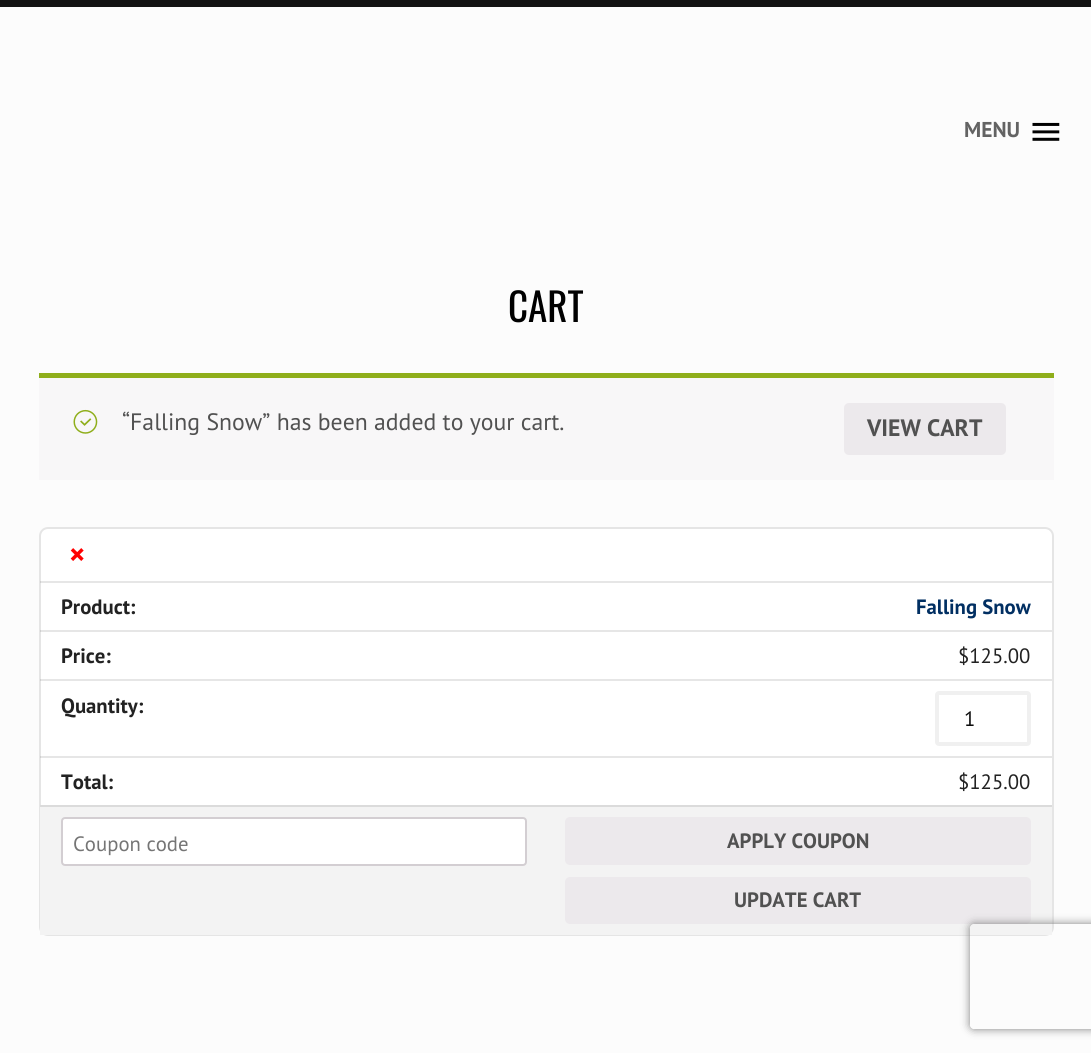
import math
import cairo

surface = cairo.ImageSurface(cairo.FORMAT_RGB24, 1091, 1053)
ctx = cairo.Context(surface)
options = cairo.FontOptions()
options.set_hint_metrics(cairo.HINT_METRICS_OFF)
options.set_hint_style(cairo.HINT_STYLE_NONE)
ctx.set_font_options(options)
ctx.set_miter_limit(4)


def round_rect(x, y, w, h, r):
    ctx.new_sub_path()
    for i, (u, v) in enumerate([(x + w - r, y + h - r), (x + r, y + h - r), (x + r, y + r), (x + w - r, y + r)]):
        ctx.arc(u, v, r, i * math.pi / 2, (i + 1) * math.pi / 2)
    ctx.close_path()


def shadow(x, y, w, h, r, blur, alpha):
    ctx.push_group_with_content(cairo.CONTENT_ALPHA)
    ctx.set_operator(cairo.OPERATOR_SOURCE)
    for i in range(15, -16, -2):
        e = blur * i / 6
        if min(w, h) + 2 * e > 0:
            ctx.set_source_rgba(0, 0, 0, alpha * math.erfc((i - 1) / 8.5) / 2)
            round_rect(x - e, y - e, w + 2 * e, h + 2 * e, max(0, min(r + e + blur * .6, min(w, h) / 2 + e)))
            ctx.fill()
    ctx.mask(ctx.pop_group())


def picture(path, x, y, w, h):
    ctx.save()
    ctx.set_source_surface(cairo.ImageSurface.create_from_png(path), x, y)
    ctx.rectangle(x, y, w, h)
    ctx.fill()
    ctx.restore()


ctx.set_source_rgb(0.988, 0.988, 0.988)
ctx.paint()
ctx.set_source_rgb(0.078, 0.078, 0.078)
ctx.rectangle(0, 0, 1091, 7)
ctx.fill()
ctx.select_font_face("PT Sans", cairo.FONT_SLANT_NORMAL, cairo.FONT_WEIGHT_BOLD)
ctx.set_font_size(21.5)
ctx.set_source_rgb(0.388, 0.388, 0.388)
ctx.move_to(964, 137)
ctx.show_text("MENU")
picture("img1.png", 1032, 122, 28, 19)
ctx.select_font_face("Oswald")
ctx.set_font_size(39)
ctx.set_source_rgb(0, 0, 0)
ctx.move_to(508, 322)
ctx.show_text("CART")
ctx.set_source_rgb(0.969, 0.965, 0.969)
ctx.rectangle(39, 378, 1015, 102)
ctx.fill()
ctx.set_source_rgb(0.561, 0.682, 0.106)
ctx.rectangle(39, 373, 1015, 5)
ctx.fill()
picture("img2.png", 73, 409, 25, 25)
ctx.select_font_face("PT Sans")
ctx.set_font_size(23.75)
ctx.set_source_rgb(0.318, 0.318, 0.318)
ctx.move_to(122, 430)
ctx.show_text("“Falling Snow” has been added to your cart.")
ctx.set_source_rgb(0.922, 0.914, 0.922)
round_rect(844, 403, 162, 52, 5)
ctx.fill()
ctx.select_font_face("PT Sans", cairo.FONT_SLANT_NORMAL, cairo.FONT_WEIGHT_BOLD)
ctx.set_source_rgb(0.318, 0.318, 0.318)
ctx.move_to(867, 436)
ctx.show_text("VIEW CART")
ctx.set_source_rgb(1, 1, 1)
round_rect(40, 528, 1013, 407, 8)
ctx.fill_preserve()
ctx.set_source_rgb(0.898, 0.898, 0.898)
ctx.stroke()
ctx.set_font_size(31)
ctx.set_source_rgb(1, 0, 0)
ctx.move_to(69, 565)
ctx.show_text("×")
ctx.set_source_rgba(0, 0, 0, 0.1)
ctx.rectangle(40, 581, 1012, 2)
ctx.fill()
ctx.set_font_size(20.75)
ctx.set_source_rgb(0.133, 0.133, 0.133)
ctx.move_to(61, 614)
ctx.show_text("Product:")
ctx.set_source_rgb(0.004, 0.184, 0.384)
ctx.move_to(916, 614)
ctx.show_text("Falling Snow")
ctx.set_source_rgba(0, 0, 0, 0.1)
ctx.rectangle(40, 630, 1012, 2)
ctx.fill()
ctx.set_source_rgb(0.133, 0.133, 0.133)
ctx.move_to(61, 663)
ctx.show_text("Price:")
ctx.select_font_face("PT Sans")
ctx.move_to(958, 663)
ctx.show_text("$125.00")
ctx.set_source_rgba(0, 0, 0, 0.1)
ctx.rectangle(40, 679, 1012, 2)
ctx.fill()
ctx.select_font_face("PT Sans", cairo.FONT_SLANT_NORMAL, cairo.FONT_WEIGHT_BOLD)
ctx.set_source_rgb(0.133, 0.133, 0.133)
ctx.move_to(61, 713)
ctx.show_text("Quantity:")
round_rect(937, 693, 92, 51, 2)
ctx.set_source_rgb(0.941, 0.941, 0.941)
ctx.set_line_width(4)
ctx.stroke()
ctx.select_font_face("PT Sans")
ctx.set_source_rgb(0.051, 0.051, 0.051)
ctx.move_to(964, 726)
ctx.show_text("1")
ctx.set_source_rgba(0, 0, 0, 0.1)
ctx.rectangle(40, 756, 1012, 2)
ctx.fill()
ctx.select_font_face("PT Sans", cairo.FONT_SLANT_NORMAL, cairo.FONT_WEIGHT_BOLD)
ctx.set_source_rgb(0.133, 0.133, 0.133)
ctx.move_to(61, 789)
ctx.show_text("Total:")
ctx.select_font_face("PT Sans")
ctx.move_to(958, 789)
ctx.show_text("$125.00")
ctx.set_source_rgb(0.953, 0.953, 0.953)
ctx.rectangle(40, 807, 1012, 128)
ctx.fill()
ctx.set_source_rgb(0.859, 0.859, 0.859)
ctx.rectangle(40, 805, 1012, 2)
ctx.fill()
ctx.set_source_rgb(1, 1, 1)
round_rect(62, 818, 464, 47, 3)
ctx.fill_preserve()
ctx.set_source_rgb(0.827, 0.808, 0.824)
ctx.set_line_width(2)
ctx.stroke()
ctx.set_source_rgb(0.459, 0.459, 0.459)
ctx.move_to(73, 851)
ctx.show_text("Coupon code")
ctx.set_source_rgb(0.922, 0.914, 0.922)
round_rect(565, 817, 466, 48, 5)
ctx.fill()
ctx.select_font_face("PT Sans", cairo.FONT_SLANT_NORMAL, cairo.FONT_WEIGHT_BOLD)
ctx.set_source_rgb(0.318, 0.318, 0.318)
ctx.move_to(727, 848)
ctx.show_text("APPLY COUPON")
ctx.set_source_rgb(0.922, 0.914, 0.922)
round_rect(565, 877, 466, 47, 5)
ctx.fill()
ctx.set_source_rgb(0.318, 0.318, 0.318)
ctx.move_to(734, 907)
ctx.show_text("UPDATE CART")
ctx.save()
ctx.set_fill_rule(cairo.FILL_RULE_EVEN_ODD)
ctx.new_path()
ctx.move_to(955, 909)
ctx.line_to(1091, 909)
ctx.line_to(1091, 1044)
ctx.line_to(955, 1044)
ctx.close_path()
ctx.move_to(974, 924)
ctx.line_to(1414, 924)
ctx.curve_to(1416, 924, 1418, 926, 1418, 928)
ctx.line_to(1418, 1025)
ctx.curve_to(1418, 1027, 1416, 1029, 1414, 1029)
ctx.line_to(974, 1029)
ctx.curve_to(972, 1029, 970, 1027, 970, 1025)
ctx.line_to(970, 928)
ctx.curve_to(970, 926, 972, 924, 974, 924)
ctx.close_path()
ctx.clip()
ctx.set_source_rgb(0.502, 0.502, 0.502)
shadow(970, 924, 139, 105, 4, 4.5, 1)
ctx.restore()
surface.write_to_png("page.png")
